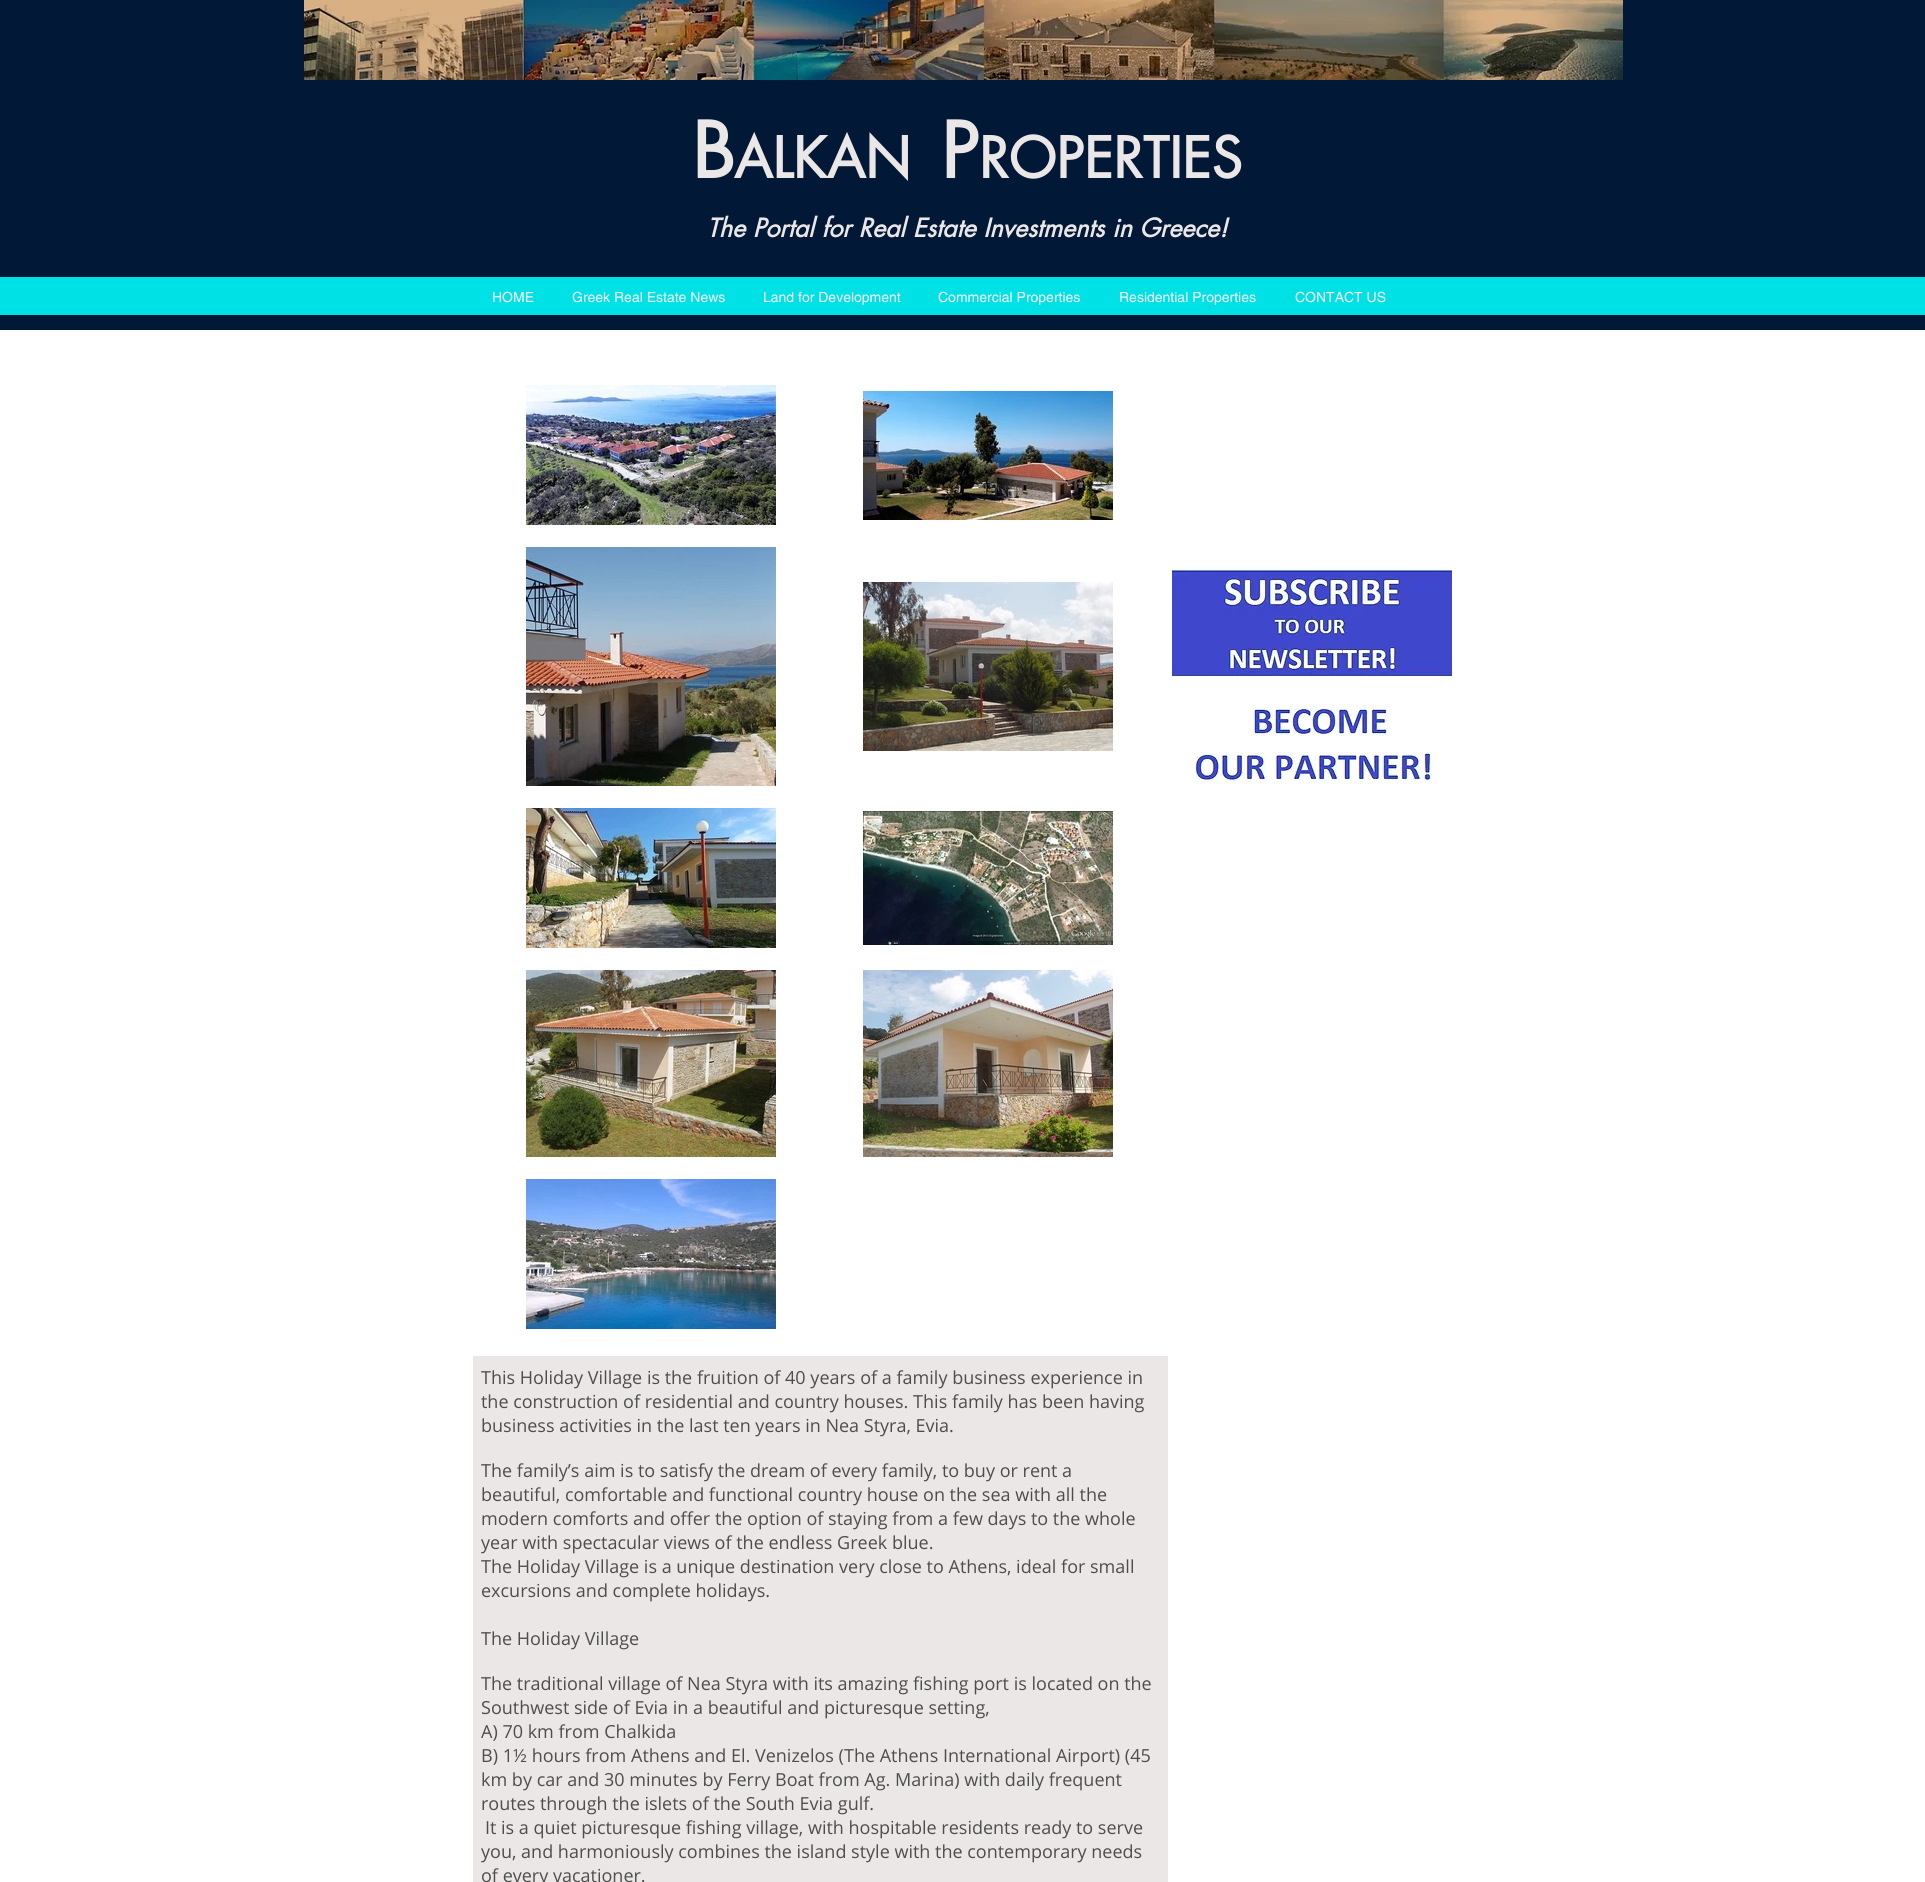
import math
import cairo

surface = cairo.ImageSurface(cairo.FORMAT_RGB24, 1925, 1882)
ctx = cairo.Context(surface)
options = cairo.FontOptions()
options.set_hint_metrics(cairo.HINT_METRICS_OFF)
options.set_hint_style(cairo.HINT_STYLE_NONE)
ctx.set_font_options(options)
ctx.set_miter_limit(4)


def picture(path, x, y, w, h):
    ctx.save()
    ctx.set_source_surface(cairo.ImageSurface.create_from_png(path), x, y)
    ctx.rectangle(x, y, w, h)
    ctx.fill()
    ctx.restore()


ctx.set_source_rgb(1, 1, 1)
ctx.paint()
ctx.set_source_rgb(0.004, 0.094, 0.212)
ctx.rectangle(0, 0, 1925, 330)
ctx.fill()
picture("img1.png", 304, 0, 1319, 80)
ctx.select_font_face("futura", cairo.FONT_SLANT_NORMAL, cairo.FONT_WEIGHT_BOLD)
ctx.set_font_size(75)
ctx.set_source_rgb(0.925, 0.906, 0.906)
ctx.move_to(692, 178)
ctx.show_text("B")
ctx.set_font_size(55)
ctx.move_to(734, 178)
ctx.show_text("ALKAN")
ctx.set_font_size(75)
ctx.move_to(941, 178)
ctx.show_text("P")
ctx.set_font_size(55)
ctx.move_to(979, 178)
ctx.show_text("ROPERTIES")
ctx.select_font_face("futura", cairo.FONT_SLANT_ITALIC, cairo.FONT_WEIGHT_BOLD)
ctx.set_font_size(25)
ctx.move_to(707, 237)
ctx.show_text("The Portal for Real Estate Investments in Greece!")
ctx.set_source_rgb(0, 0.882, 0.898)
ctx.rectangle(0, 277, 1925, 38)
ctx.fill()
ctx.select_font_face("helvetica")
ctx.set_font_size(14)
ctx.set_source_rgb(1, 0.992, 0.992)
ctx.move_to(492, 302)
ctx.show_text("HOME")
ctx.move_to(572, 302)
ctx.show_text("Greek Real Estate News")
ctx.move_to(763, 302)
ctx.show_text("Land for Development")
ctx.move_to(938, 302)
ctx.show_text("Commercial Properties")
ctx.move_to(1119, 302)
ctx.show_text("Residential Properties")
ctx.move_to(1295, 302)
ctx.show_text("CONTACT US")
picture("img2.png", 1172, 569, 280, 108)
picture("img3.png", 1195, 703, 241, 82)
picture("img4.png", 526, 385, 250, 140)
picture("img5.png", 863, 391, 250, 129)
picture("img6.png", 526, 547, 250, 239)
picture("img7.png", 863, 582, 250, 169)
picture("img8.png", 526, 808, 250, 140)
picture("img9.png", 863, 811, 250, 134)
picture("img10.png", 526, 970, 250, 187)
picture("img11.png", 863, 970, 250, 187)
picture("img12.png", 526, 1179, 250, 150)
ctx.set_source_rgb(0.925, 0.906, 0.906)
ctx.rectangle(473, 1356, 695, 526)
ctx.fill()
ctx.select_font_face("Open Sans")
ctx.set_font_size(18)
ctx.set_source_rgb(0.306, 0.302, 0.302)
ctx.move_to(481, 1384)
ctx.show_text("This Holiday Village is the fruition of 40 years of a family business experience in")
ctx.move_to(481, 1408)
ctx.show_text("the construction of residential and country houses. This family has been having")
ctx.move_to(481, 1432)
ctx.show_text("business activities in the last ten years in Nea Styra, Evia.")
ctx.move_to(481, 1477)
ctx.show_text("The family’s aim is to satisfy the dream of every family, to buy or rent a")
ctx.move_to(481, 1501)
ctx.show_text("beautiful, comfortable and functional country house on the sea with all the")
ctx.move_to(481, 1525)
ctx.show_text("modern comforts and offer the option of staying from a few days to the whole")
ctx.move_to(481, 1549)
ctx.show_text("year with spectacular views of the endless Greek blue.")
ctx.move_to(481, 1573)
ctx.show_text("The Holiday Village is a unique destination very close to Athens, ideal for small")
ctx.move_to(481, 1597)
ctx.show_text("excursions and complete holidays.")
ctx.move_to(481, 1645)
ctx.show_text("The Holiday Village")
ctx.move_to(481, 1690)
ctx.show_text("The traditional village of Nea Styra with its amazing fishing port is located on the")
ctx.move_to(481, 1714)
ctx.show_text("Southwest side of Evia in a beautiful and picturesque setting,")
ctx.move_to(481, 1738)
ctx.show_text("A) 70 km from Chalkida")
ctx.move_to(481, 1762)
ctx.show_text("B) 1½ hours from Athens and El. Venizelos (The Athens International Airport) (45")
ctx.move_to(481, 1786)
ctx.show_text("km by car and 30 minutes by Ferry Boat from Ag. Marina) with daily frequent")
ctx.move_to(481, 1810)
ctx.show_text("routes through the islets of the South Evia gulf.")
ctx.move_to(485, 1834)
ctx.show_text("It is a quiet picturesque fishing village, with hospitable residents ready to serve")
ctx.move_to(481, 1858)
ctx.show_text("you, and harmoniously combines the island style with the contemporary needs")
ctx.move_to(481, 1882)
ctx.show_text("of every vacationer.")
surface.write_to_png("page.png")
